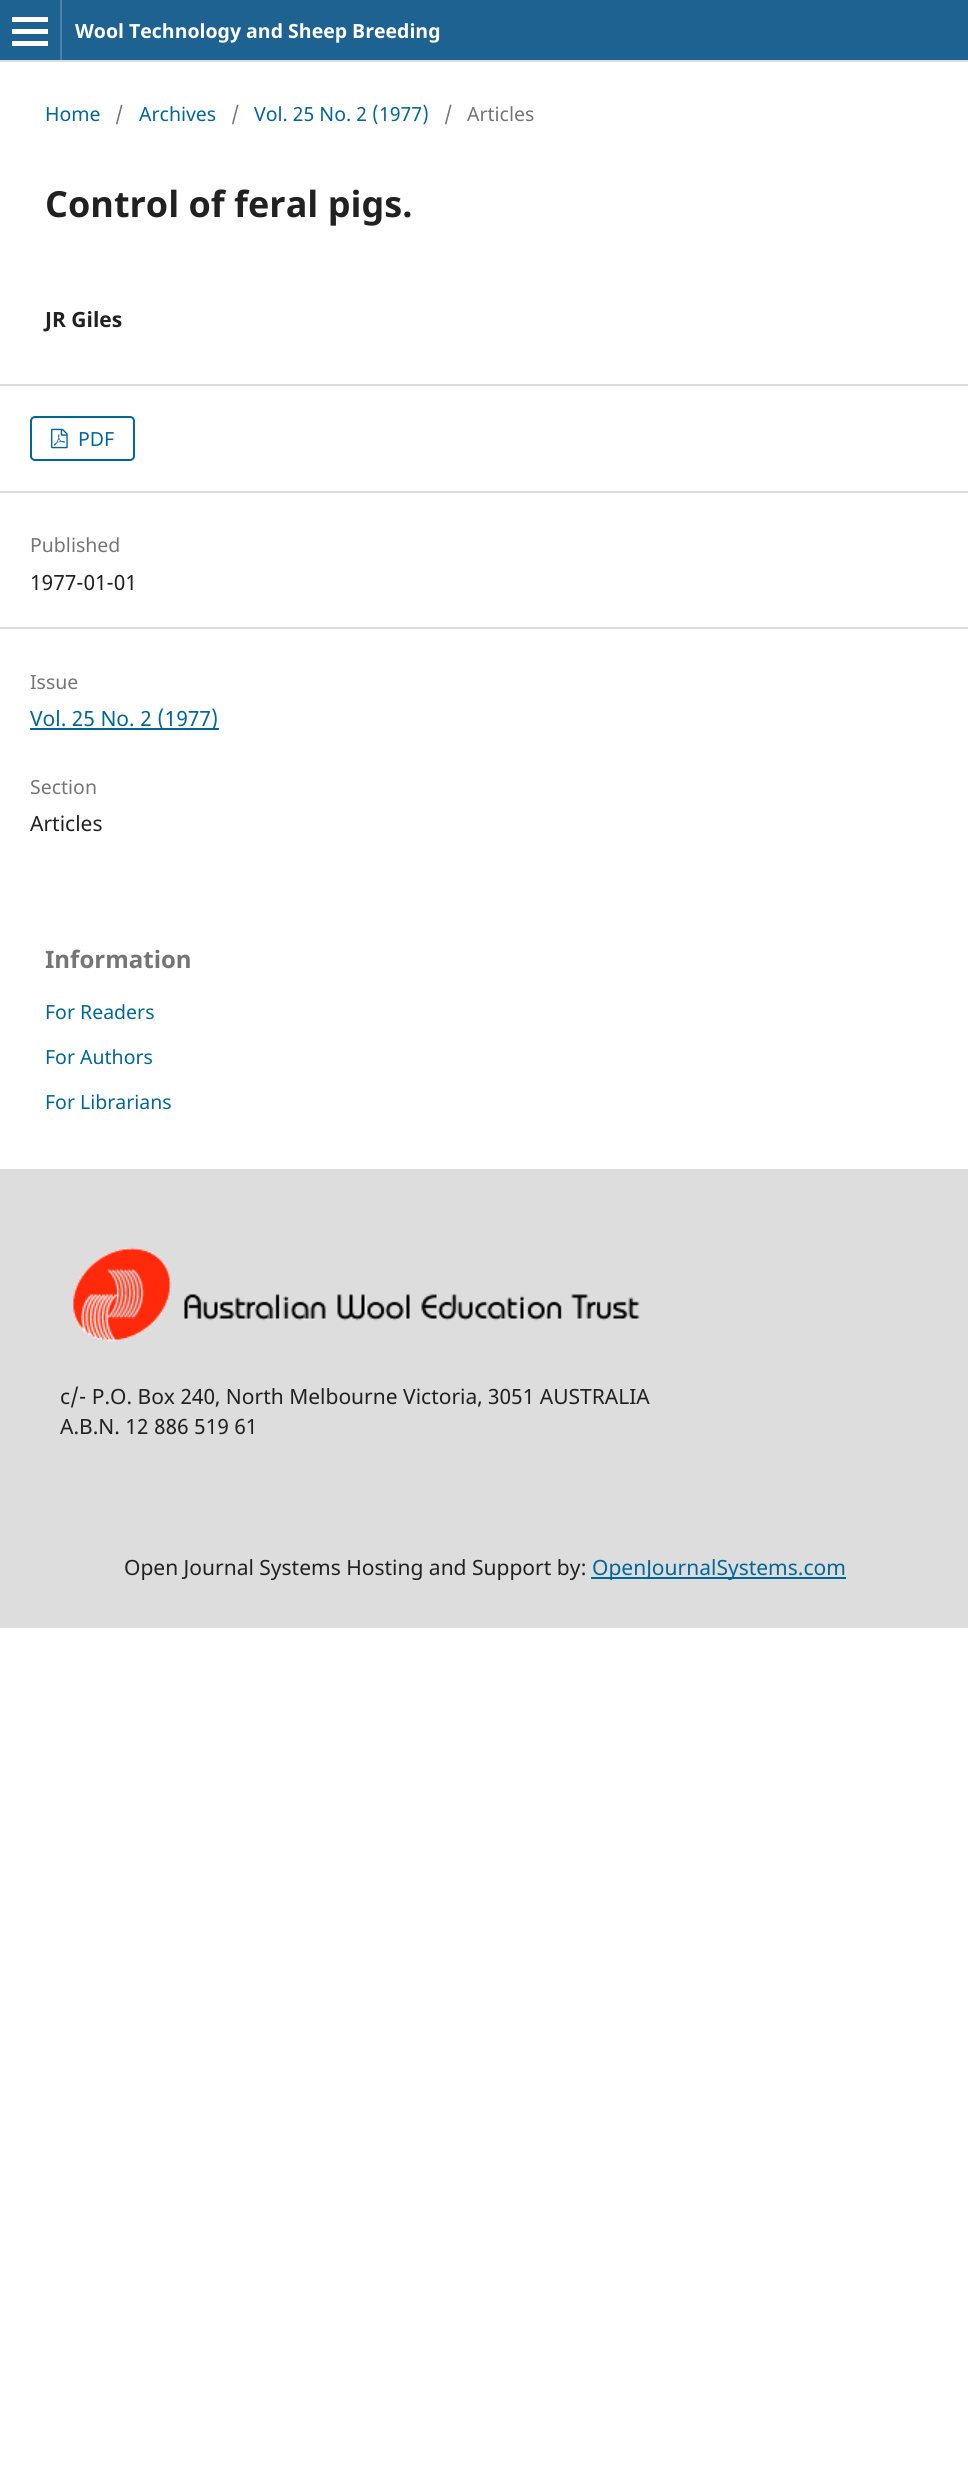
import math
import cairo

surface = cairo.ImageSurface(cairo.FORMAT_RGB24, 968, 2470)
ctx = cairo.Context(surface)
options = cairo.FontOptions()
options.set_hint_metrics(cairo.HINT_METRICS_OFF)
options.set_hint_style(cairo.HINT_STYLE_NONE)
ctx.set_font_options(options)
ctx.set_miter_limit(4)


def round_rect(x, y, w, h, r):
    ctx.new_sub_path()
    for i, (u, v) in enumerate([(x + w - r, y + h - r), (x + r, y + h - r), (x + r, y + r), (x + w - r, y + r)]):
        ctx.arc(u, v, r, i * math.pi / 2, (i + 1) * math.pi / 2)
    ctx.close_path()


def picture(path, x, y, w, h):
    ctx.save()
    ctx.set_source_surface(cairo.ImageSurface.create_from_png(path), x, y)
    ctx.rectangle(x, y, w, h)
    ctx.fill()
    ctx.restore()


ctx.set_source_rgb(1, 1, 1)
ctx.paint()
ctx.set_source_rgb(0.118, 0.384, 0.573)
ctx.rectangle(0, 0, 968, 60)
ctx.fill()
ctx.set_source_rgb(0.867, 0.867, 0.867)
ctx.rectangle(0, 60, 968, 2)
ctx.fill()
ctx.set_source_rgb(0.294, 0.506, 0.659)
ctx.rectangle(60, 0, 2, 60)
ctx.fill()
ctx.set_source_rgb(1, 1, 1)
ctx.rectangle(12, 41, 36, 5)
ctx.fill()
ctx.rectangle(12, 17, 36, 5)
ctx.fill()
ctx.rectangle(12, 29, 36, 5)
ctx.fill()
ctx.select_font_face("Noto Sans", cairo.FONT_SLANT_NORMAL, cairo.FONT_WEIGHT_BOLD)
ctx.set_font_size(19.5)
ctx.move_to(75, 38)
ctx.show_text("Wool Technology and Sheep Breeding")
ctx.select_font_face("Noto Sans")
ctx.set_source_rgb(0, 0.404, 0.596)
ctx.move_to(45, 121)
ctx.show_text("Home")
ctx.set_source_rgb(0.459, 0.459, 0.459)
ctx.move_to(115, 121)
ctx.show_text("/")
ctx.set_source_rgb(0, 0.404, 0.596)
ctx.move_to(139, 121)
ctx.show_text("Archives")
ctx.set_source_rgb(0.459, 0.459, 0.459)
ctx.move_to(231, 121)
ctx.show_text("/")
ctx.set_source_rgb(0, 0.404, 0.596)
ctx.move_to(254, 121)
ctx.show_text("Vol. 25 No. 2 (1977)")
ctx.set_source_rgb(0.459, 0.459, 0.459)
ctx.move_to(444, 121)
ctx.show_text("/")
ctx.move_to(467, 121)
ctx.show_text("Articles")
ctx.select_font_face("Noto Sans", cairo.FONT_SLANT_NORMAL, cairo.FONT_WEIGHT_BOLD)
ctx.set_font_size(36)
ctx.set_source_rgb(0.129, 0.129, 0.129)
ctx.move_to(45, 217)
ctx.show_text("Control of feral pigs.")
ctx.set_font_size(21)
ctx.move_to(45, 327)
ctx.show_text("JR Giles")
ctx.set_source_rgb(0.867, 0.867, 0.867)
ctx.rectangle(0, 384, 968, 2)
ctx.fill()
ctx.rectangle(0, 491, 968, 2)
ctx.fill()
round_rect(31, 417, 103, 43, 4)
ctx.set_source_rgb(0, 0.404, 0.596)
ctx.stroke()
picture("img1.png", 51, 428, 17, 21)
ctx.select_font_face("Noto Sans")
ctx.set_font_size(19.5)
ctx.move_to(78, 446)
ctx.show_text("PDF")
ctx.set_source_rgb(0.867, 0.867, 0.867)
ctx.rectangle(0, 627, 968, 2)
ctx.fill()
ctx.set_source_rgb(0.459, 0.459, 0.459)
ctx.move_to(30, 552)
ctx.show_text("Published")
ctx.set_font_size(21)
ctx.set_source_rgb(0.129, 0.129, 0.129)
ctx.move_to(30, 590)
ctx.show_text("1977-01-01")
ctx.set_font_size(19.5)
ctx.set_source_rgb(0.459, 0.459, 0.459)
ctx.move_to(30, 689)
ctx.show_text("Issue")
ctx.set_source_rgb(0, 0.404, 0.596)
ctx.rectangle(30, 728, 189, 2)
ctx.fill()
ctx.set_font_size(21)
ctx.move_to(30, 726)
ctx.show_text("Vol. 25 No. 2 (1977)")
ctx.set_font_size(19.5)
ctx.set_source_rgb(0.459, 0.459, 0.459)
ctx.move_to(30, 794)
ctx.show_text("Section")
ctx.set_font_size(21)
ctx.set_source_rgb(0.129, 0.129, 0.129)
ctx.move_to(30, 831)
ctx.show_text("Articles")
ctx.select_font_face("Noto Sans", cairo.FONT_SLANT_NORMAL, cairo.FONT_WEIGHT_BOLD)
ctx.set_font_size(24)
ctx.set_source_rgb(0.459, 0.459, 0.459)
ctx.move_to(45, 968)
ctx.show_text("Information")
ctx.select_font_face("Noto Sans")
ctx.set_font_size(19.5)
ctx.set_source_rgb(0, 0.404, 0.596)
ctx.move_to(45, 1019)
ctx.show_text("For Readers")
ctx.move_to(45, 1064)
ctx.show_text("For Authors")
ctx.move_to(45, 1109)
ctx.show_text("For Librarians")
ctx.set_source_rgb(0.867, 0.867, 0.867)
ctx.rectangle(0, 1169, 968, 459)
ctx.fill()
picture("img2.png", 73, 1247, 567, 95)
ctx.set_font_size(21)
ctx.set_source_rgb(0.129, 0.129, 0.129)
ctx.move_to(60, 1404)
ctx.show_text("c/- P.O. Box 240, North Melbourne Victoria, 3051 AUSTRALIA")
ctx.move_to(60, 1434)
ctx.show_text("A.B.N. 12 886 519 61")
ctx.move_to(124, 1575)
ctx.show_text("Open Journal Systems Hosting and Support by:")
ctx.set_source_rgb(0, 0.404, 0.596)
ctx.rectangle(591, 1577, 255, 2)
ctx.fill()
ctx.move_to(592, 1575)
ctx.show_text("OpenJournalSystems.com")
surface.write_to_png("page.png")
